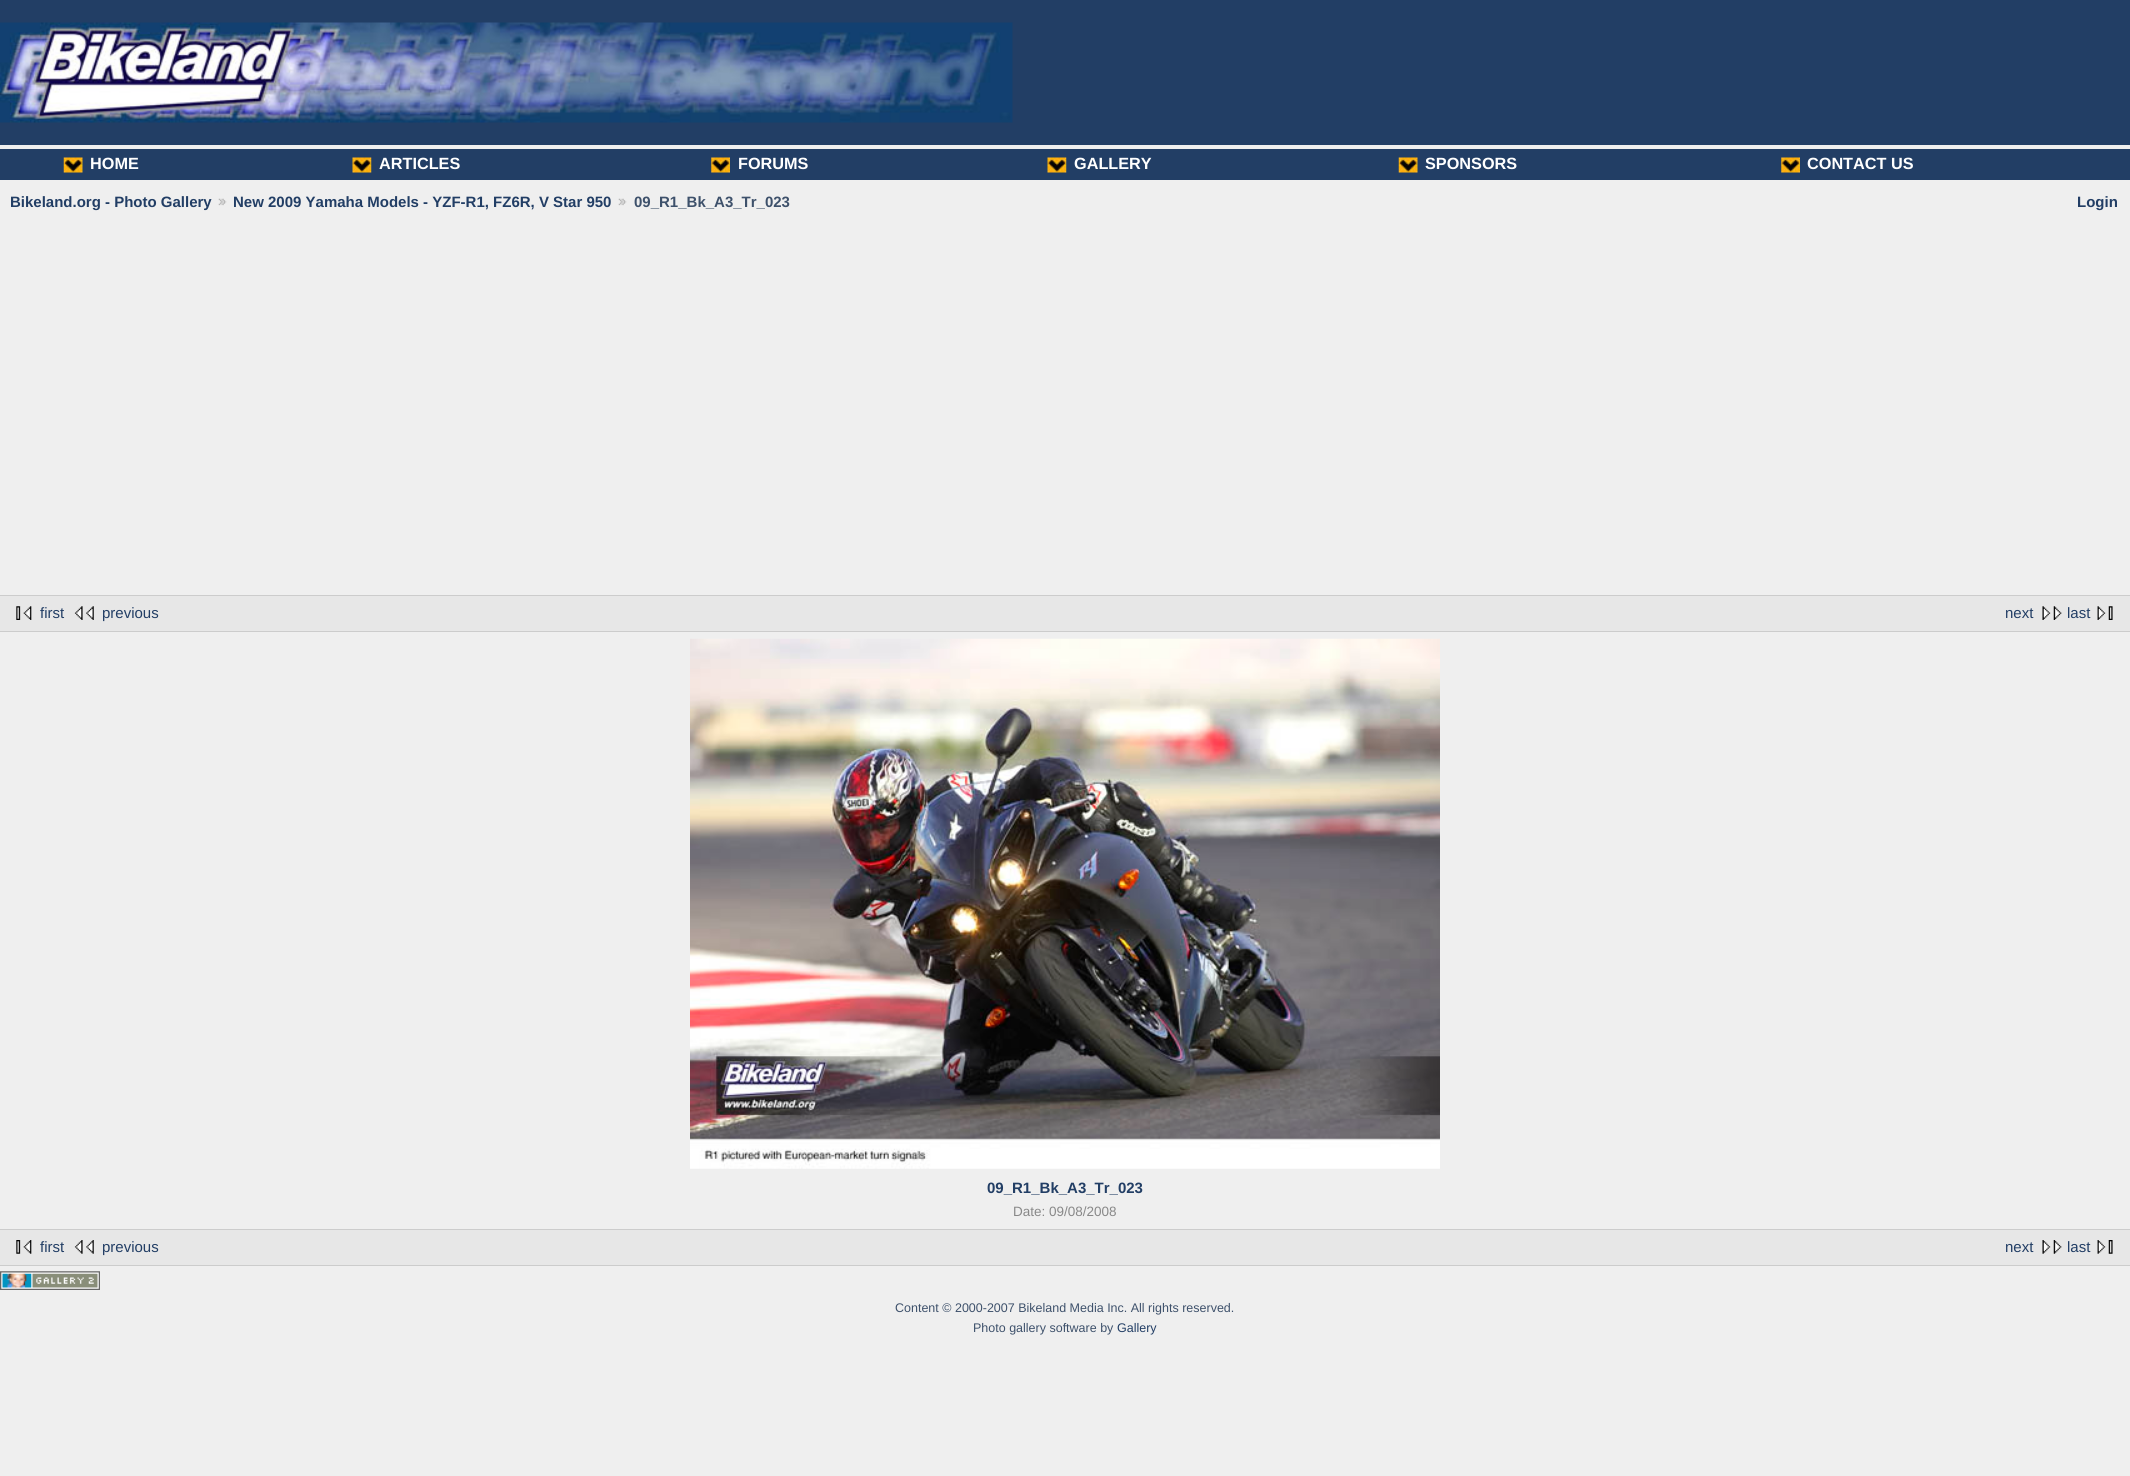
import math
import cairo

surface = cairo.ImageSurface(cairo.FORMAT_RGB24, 2130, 1476)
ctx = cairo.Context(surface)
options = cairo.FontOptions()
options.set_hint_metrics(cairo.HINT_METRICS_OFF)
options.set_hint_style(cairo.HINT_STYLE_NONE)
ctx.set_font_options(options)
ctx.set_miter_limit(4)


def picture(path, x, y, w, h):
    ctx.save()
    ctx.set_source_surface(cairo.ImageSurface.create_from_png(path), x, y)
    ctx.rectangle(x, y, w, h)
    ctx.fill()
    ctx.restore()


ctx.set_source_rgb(0.937, 0.937, 0.937)
ctx.paint()
ctx.set_source_rgb(0.133, 0.243, 0.396)
ctx.rectangle(0, 0, 2130, 145)
ctx.fill()
picture("img1.png", 0, 22, 1013, 101)
ctx.rectangle(0, 149, 2130, 31)
ctx.fill()
picture("img2.png", 63, 157, 20, 16)
ctx.select_font_face("Liberation Sans", cairo.FONT_SLANT_NORMAL, cairo.FONT_WEIGHT_BOLD)
ctx.set_font_size(16.25)
ctx.set_source_rgb(1, 1, 1)
ctx.move_to(90, 169)
ctx.show_text("HOME")
picture("img3.png", 352, 157, 20, 16)
ctx.move_to(379, 169)
ctx.show_text("ARTICLES")
picture("img4.png", 711, 157, 19, 16)
ctx.move_to(738, 169)
ctx.show_text("FORUMS")
picture("img3.png", 1047, 157, 20, 16)
ctx.move_to(1074, 169)
ctx.show_text("GALLERY")
picture("img5.png", 1398, 157, 20, 16)
ctx.move_to(1425, 169)
ctx.show_text("SPONSORS")
picture("img4.png", 1781, 157, 19, 16)
ctx.move_to(1807, 169)
ctx.show_text("CONTACT US")
ctx.set_source_rgb(0.8, 0.8, 0.8)
ctx.rectangle(0, 595, 2130, 1)
ctx.fill()
ctx.set_font_size(15)
ctx.set_source_rgb(0.133, 0.243, 0.396)
ctx.move_to(10, 207)
ctx.show_text("Bikeland.org - Photo Gallery")
picture("img6.png", 218, 198, 9, 8)
ctx.move_to(233, 207)
ctx.show_text("New 2009 Yamaha Models - YZF-R1, FZ6R, V Star 950")
picture("img6.png", 618, 198, 9, 8)
ctx.set_source_rgb(0.243, 0.318, 0.42)
ctx.move_to(634, 207)
ctx.show_text("09_R1_Bk_A3_Tr_023")
ctx.set_source_rgb(0.133, 0.243, 0.396)
ctx.move_to(2077, 207)
ctx.show_text("Login")
ctx.set_source_rgb(0.906, 0.906, 0.906)
ctx.rectangle(0, 596, 2130, 35)
ctx.fill()
ctx.set_source_rgb(0.8, 0.8, 0.8)
ctx.rectangle(0, 631, 2130, 1)
ctx.fill()
picture("img7.png", 16, 606, 16, 14)
ctx.select_font_face("Liberation Sans")
ctx.set_source_rgb(0.133, 0.243, 0.396)
ctx.move_to(40, 618)
ctx.show_text("first")
picture("img8.png", 74, 606, 20, 14)
ctx.move_to(102, 618)
ctx.show_text("previous")
ctx.move_to(2005, 618)
ctx.show_text("next")
picture("img9.png", 2042, 606, 20, 14)
ctx.move_to(2067, 618)
ctx.show_text("last")
picture("img10.png", 2097, 606, 16, 14)
picture("img11.png", 690, 638, 750, 531)
ctx.select_font_face("Liberation Sans", cairo.FONT_SLANT_NORMAL, cairo.FONT_WEIGHT_BOLD)
ctx.move_to(987, 1193)
ctx.show_text("09_R1_Bk_A3_Tr_023")
ctx.select_font_face("Liberation Sans")
ctx.set_font_size(13.5)
ctx.set_source_rgb(0.533, 0.533, 0.533)
ctx.move_to(1013, 1216)
ctx.show_text("Date: 09/08/2008")
ctx.set_source_rgb(0.906, 0.906, 0.906)
ctx.rectangle(0, 1230, 2130, 35)
ctx.fill()
ctx.set_source_rgb(0.8, 0.8, 0.8)
ctx.rectangle(0, 1229, 2130, 1)
ctx.fill()
ctx.rectangle(0, 1265, 2130, 1)
ctx.fill()
picture("img12.png", 16, 1240, 16, 14)
ctx.set_font_size(15)
ctx.set_source_rgb(0.133, 0.243, 0.396)
ctx.move_to(40, 1252)
ctx.show_text("first")
picture("img13.png", 74, 1240, 20, 14)
ctx.move_to(102, 1252)
ctx.show_text("previous")
ctx.move_to(2005, 1252)
ctx.show_text("next")
picture("img14.png", 2042, 1240, 20, 14)
ctx.move_to(2067, 1252)
ctx.show_text("last")
picture("img15.png", 2097, 1240, 16, 14)
picture("img16.png", 0, 1271, 100, 19)
ctx.set_font_size(12.5)
ctx.set_source_rgb(0.243, 0.318, 0.42)
ctx.move_to(895, 1312)
ctx.show_text("Content © 2000-2007 Bikeland Media Inc. All rights reserved.")
ctx.move_to(973, 1332)
ctx.show_text("Photo gallery software by")
ctx.set_source_rgb(0.133, 0.243, 0.396)
ctx.move_to(1117, 1332)
ctx.show_text("Gallery")
surface.write_to_png("page.png")
